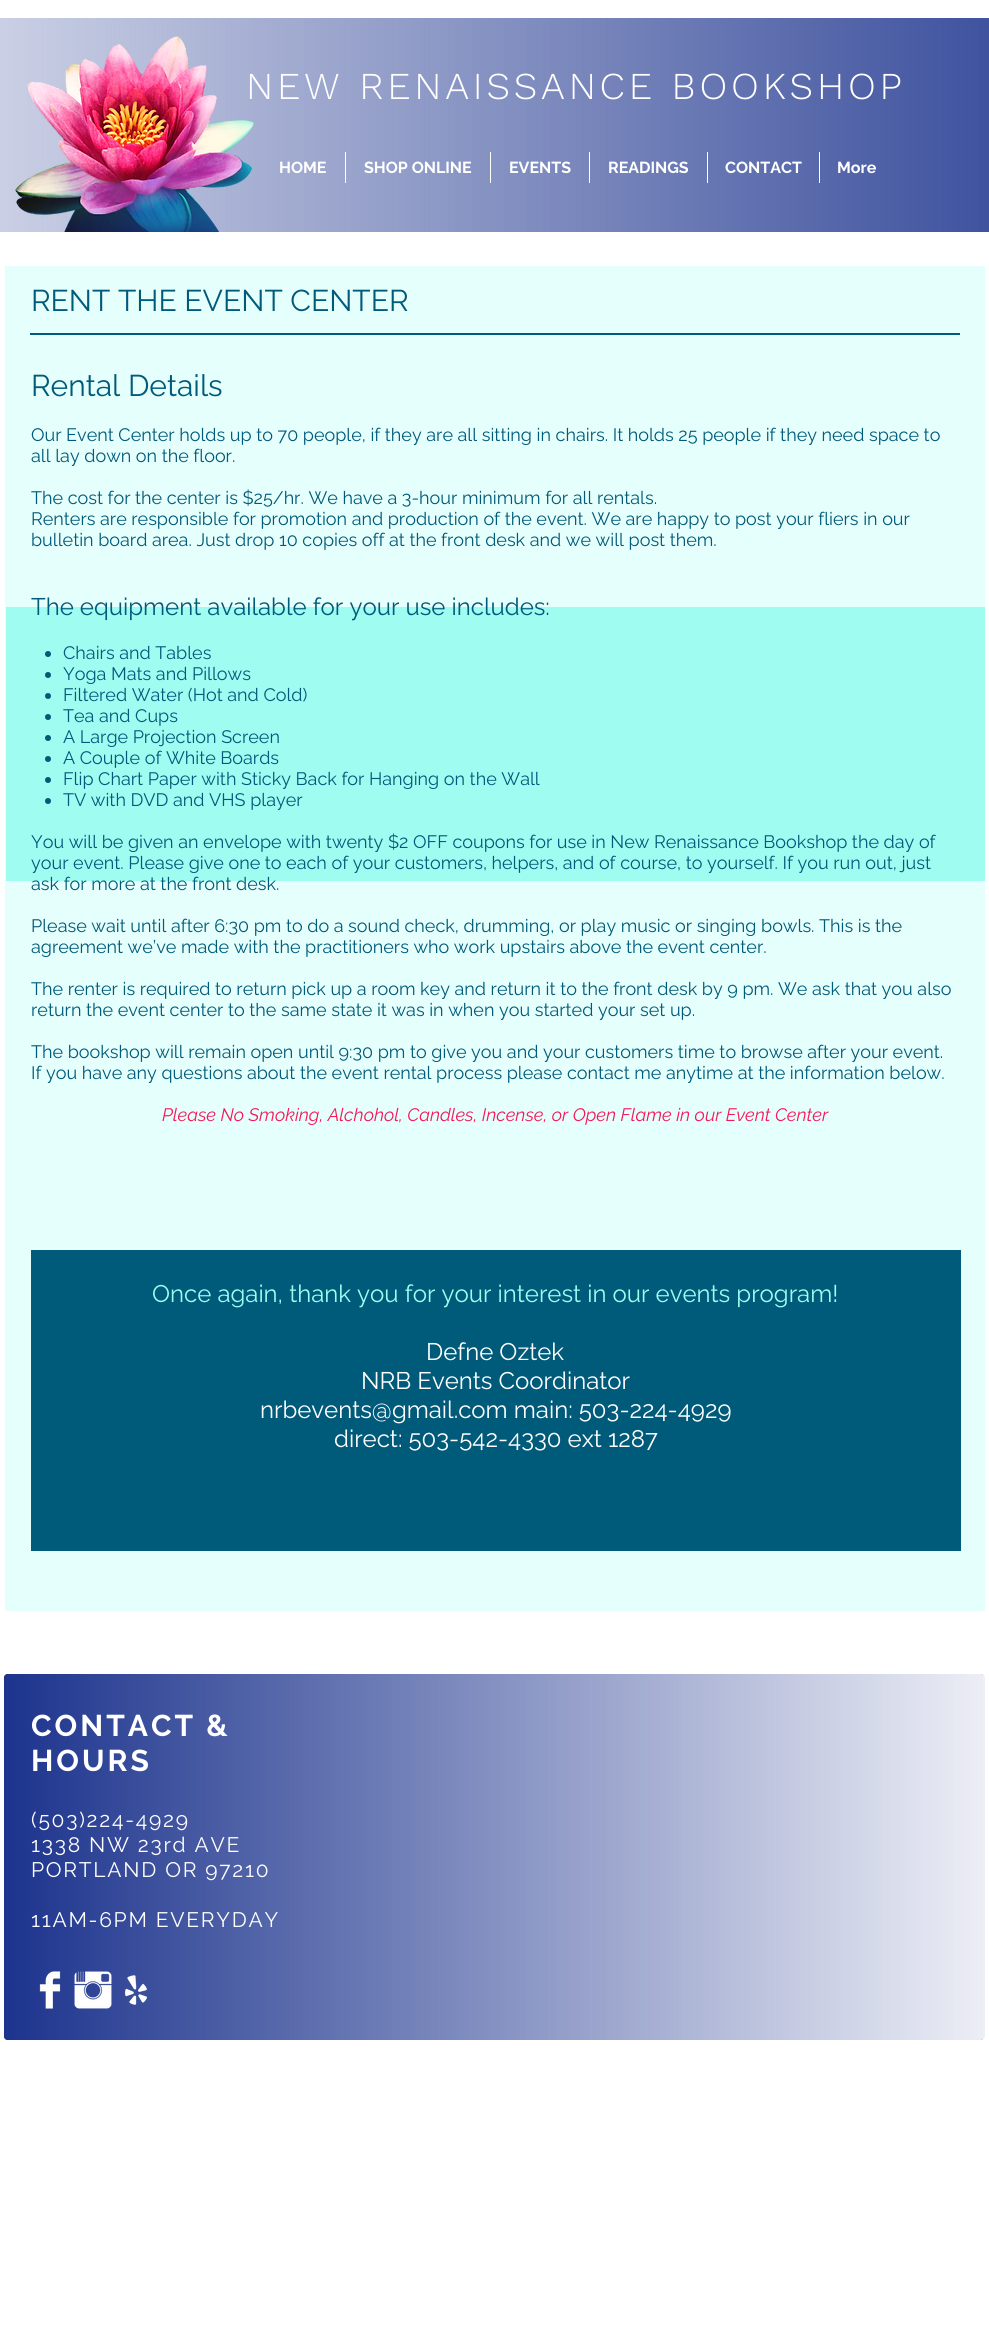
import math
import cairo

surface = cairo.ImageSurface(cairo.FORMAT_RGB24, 989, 2339)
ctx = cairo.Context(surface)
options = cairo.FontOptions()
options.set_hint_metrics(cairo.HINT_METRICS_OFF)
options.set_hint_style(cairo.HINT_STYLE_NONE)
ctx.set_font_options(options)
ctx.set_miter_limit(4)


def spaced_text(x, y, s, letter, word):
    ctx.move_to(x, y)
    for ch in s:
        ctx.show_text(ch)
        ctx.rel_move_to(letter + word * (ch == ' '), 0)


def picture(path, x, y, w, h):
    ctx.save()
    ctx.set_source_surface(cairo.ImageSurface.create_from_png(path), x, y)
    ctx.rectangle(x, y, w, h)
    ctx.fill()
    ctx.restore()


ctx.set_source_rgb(1, 1, 1)
ctx.paint()
picture("img1.png", 0, 18, 989, 214)
picture("img2.png", 15, 36, 239, 196)
ctx.select_font_face("Work Sans Light")
ctx.set_font_size(38)
ctx.set_source_rgb(1, 1, 1)
spaced_text(246, 99, "NEW RENAISSANCE BOOKSHOP", 3.8, 0)
ctx.select_font_face("Raleway", cairo.FONT_SLANT_NORMAL, cairo.FONT_WEIGHT_BOLD)
ctx.set_font_size(16)
ctx.move_to(279, 173)
ctx.show_text("HOME")
ctx.rectangle(345, 152, 1, 31)
ctx.fill()
ctx.move_to(364, 173)
ctx.show_text("SHOP ONLINE")
ctx.rectangle(490, 152, 1, 31)
ctx.fill()
ctx.move_to(509, 173)
ctx.show_text("EVENTS")
ctx.rectangle(589, 152, 1, 31)
ctx.fill()
ctx.move_to(608, 173)
ctx.show_text("READINGS")
ctx.rectangle(707, 152, 1, 31)
ctx.fill()
ctx.move_to(725, 173)
ctx.show_text("CONTACT")
ctx.rectangle(819, 152, 1, 31)
ctx.fill()
ctx.move_to(837, 173)
ctx.show_text("More")
ctx.set_source_rgb(0.898, 1, 0.988)
ctx.rectangle(5, 266, 980, 1345)
ctx.fill()
ctx.select_font_face("Raleway")
ctx.set_font_size(30)
ctx.set_source_rgb(0, 0.353, 0.478)
ctx.move_to(31, 311)
ctx.show_text("RENT THE EVENT CENTER")
ctx.move_to(31, 396)
ctx.show_text("Rental Details")
ctx.set_font_size(18)
ctx.move_to(31, 441)
ctx.show_text("Our Event Center holds up to 70 people, if they are all sitting in chairs. It holds 25 people if they need space to")
ctx.move_to(31, 462)
ctx.show_text("all lay down on the floor.")
ctx.move_to(31, 504)
ctx.show_text("The cost for the center is $25/hr. We have a 3-hour minimum for all rentals.")
ctx.move_to(31, 525)
ctx.show_text("Renters are responsible for promotion and production of the event. We are happy to post your fliers in our")
ctx.move_to(31, 546)
ctx.show_text("bulletin board area. Just drop 10 copies off at the front desk and we will post them.")
ctx.set_source_rgb(0.62, 0.988, 0.945)
ctx.rectangle(6, 607, 979, 274)
ctx.fill()
ctx.set_font_size(24)
ctx.set_source_rgb(0, 0.353, 0.478)
ctx.move_to(31, 615)
ctx.show_text("The equipment available for your use includes:")
ctx.new_path()
ctx.arc(48, 654, 3, 0, 2 * math.pi)
ctx.fill()
ctx.set_font_size(18)
ctx.move_to(63, 659)
ctx.show_text("Chairs and Tables")
ctx.new_path()
ctx.arc(48, 675, 3, 0, 2 * math.pi)
ctx.fill()
ctx.move_to(63, 680)
ctx.show_text("Yoga Mats and Pillows")
ctx.new_path()
ctx.arc(48, 696, 3, 0, 2 * math.pi)
ctx.fill()
ctx.move_to(63, 701)
ctx.show_text("Filtered Water (Hot and Cold)")
ctx.new_path()
ctx.arc(48, 717, 3, 0, 2 * math.pi)
ctx.fill()
ctx.move_to(63, 722)
ctx.show_text("Tea and Cups")
ctx.new_path()
ctx.arc(48, 738, 3, 0, 2 * math.pi)
ctx.fill()
ctx.move_to(63, 743)
ctx.show_text("A Large Projection Screen")
ctx.new_path()
ctx.arc(48, 759, 3, 0, 2 * math.pi)
ctx.fill()
ctx.move_to(63, 764)
ctx.show_text("A Couple of White Boards")
ctx.new_path()
ctx.arc(48, 780, 3, 0, 2 * math.pi)
ctx.fill()
ctx.move_to(63, 785)
ctx.show_text("Flip Chart Paper with Sticky Back for Hanging on the Wall")
ctx.new_path()
ctx.arc(48, 801, 3, 0, 2 * math.pi)
ctx.fill()
ctx.move_to(63, 806)
ctx.show_text("TV with DVD and VHS player")
ctx.move_to(31, 848)
ctx.show_text("You will be given an envelope with twenty $2 OFF coupons for use in New Renaissance Bookshop the day of")
ctx.move_to(31, 869)
ctx.show_text("your event. Please give one to each of your customers, helpers, and of course, to yourself. If you run out, just")
ctx.move_to(31, 890)
ctx.show_text("ask for more at the front desk.")
ctx.move_to(31, 932)
ctx.show_text("Please wait until after 6:30 pm to do a sound check, drumming, or play music or singing bowls. This is the")
ctx.move_to(31, 953)
ctx.show_text("agreement we’ve made with the practitioners who work upstairs above the event center.")
ctx.move_to(31, 995)
ctx.show_text("The renter is required to return pick up a room key and return it to the front desk by 9 pm. We ask that you also")
ctx.move_to(31, 1016)
ctx.show_text("return the event center to the same state it was in when you started your set up.")
ctx.move_to(31, 1058)
ctx.show_text("The bookshop will remain open until 9:30 pm to give you and your customers time to browse after your event.")
ctx.move_to(31, 1079)
ctx.show_text("If you have any questions about the event rental process please contact me anytime at the information below.")
ctx.select_font_face("Raleway", cairo.FONT_SLANT_ITALIC)
ctx.set_source_rgb(0.969, 0.086, 0.349)
ctx.move_to(162, 1121)
ctx.show_text("Please No Smoking, Alchohol, Candles, Incense, or Open Flame in our Event Center")
ctx.set_source_rgb(0, 0.353, 0.478)
ctx.rectangle(31, 1250, 930, 301)
ctx.fill()
ctx.select_font_face("Raleway")
ctx.set_font_size(24)
ctx.set_source_rgb(0.62, 0.988, 0.945)
ctx.move_to(152, 1302)
ctx.show_text("Once again, thank you for your interest in our events program!")
ctx.set_source_rgb(1, 1, 1)
ctx.move_to(426, 1360)
ctx.show_text("Defne Oztek")
ctx.move_to(361, 1389)
ctx.show_text("NRB Events Coordinator")
ctx.move_to(260, 1418)
ctx.show_text("nrbevents@gmail.com main: 503-224-4929")
ctx.move_to(334, 1447)
ctx.show_text("direct: 503-542-4330 ext 1287")
ctx.set_source_rgb(0, 0.353, 0.478)
ctx.rectangle(30, 333, 930, 2)
ctx.fill()
ctx.set_source_rgb(0.2, 0.2, 0.2)
ctx.new_path()
ctx.move_to(980, 2040)
ctx.line_to(8, 2040)
ctx.curve_to(5, 2040, 4, 2038, 4, 2036)
ctx.line_to(4, 1678)
ctx.curve_to(4, 1676, 5, 1674, 8, 1674)
ctx.line_to(980, 1674)
ctx.curve_to(983, 1674, 984, 1676, 984, 1678)
ctx.line_to(984, 2036)
ctx.curve_to(984, 2038, 983, 2040, 980, 2040)
ctx.close_path()
ctx.fill()
picture("img3.png", 4, 1674, 981, 366)
ctx.select_font_face("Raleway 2", cairo.FONT_SLANT_NORMAL, cairo.FONT_WEIGHT_BOLD)
ctx.set_font_size(30)
ctx.set_source_rgb(1, 1, 1)
spaced_text(31, 1736, "CONTACT &", 3, 0)
spaced_text(31, 1771, "HOURS", 3, 0)
ctx.select_font_face("Raleway")
ctx.set_font_size(21)
spaced_text(31, 1827, "(503)224-4929", 1.75, 0)
spaced_text(31, 1852, "1338 NW 23rd AVE", 1.75, 0)
spaced_text(31, 1877, "PORTLAND OR 97210", 1.75, 0)
spaced_text(31, 1927, "11AM-6PM EVERYDAY", 1.75, 0)
picture("img4.png", 39, 1971, 22, 38)
picture("img5.png", 74, 1971, 38, 38)
picture("img6.png", 124, 1975, 24, 30)
surface.write_to_png("page.png")
